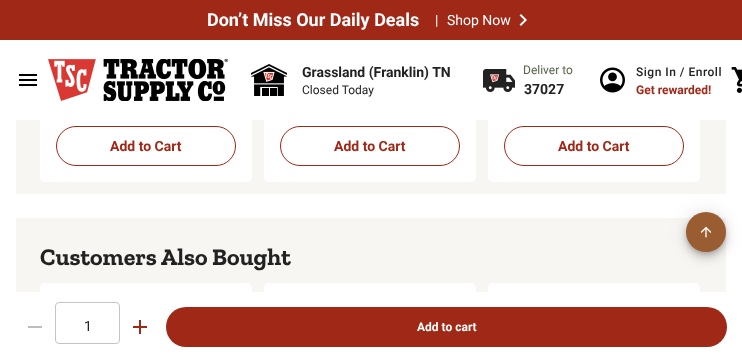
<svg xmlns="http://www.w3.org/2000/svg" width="742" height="362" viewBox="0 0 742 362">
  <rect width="100%" height="100%" fill="rgb(255,255,255)"/>
  <rect x="16" y="120" width="710" height="74" fill="rgb(248,246,242)"/>
  <rect x="40" y="-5" width="212" height="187" rx="5" fill="rgb(255,255,255)"/>
  <rect x="264" y="-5" width="212" height="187" rx="5" fill="rgb(255,255,255)"/>
  <rect x="488" y="-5" width="212" height="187" rx="5" fill="rgb(255,255,255)"/>
  <rect x="0" y="0" width="742" height="40" fill="rgb(160,40,23)"/>
  <text x="207" y="26" font-family="'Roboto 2'" font-size="18" font-weight="bold" fill="rgb(255,255,255)">Don’t Miss Our Daily Deals</text>
  <g font-family="Roboto" font-size="14" fill="rgb(255,255,255)">
    <text x="435" y="25">|</text>
    <text x="447" y="25">Shop Now</text>
  </g>
  <image x="519" y="14" width="8" height="12" href="pic1.png"/>
  <image x="19" y="74" width="18" height="12" href="pic2.png"/>
  <image x="48" y="59" width="180" height="42" href="pic3.png"/>
  <image x="251" y="64" width="36" height="32" href="pic4.png"/>
  <text x="302" y="77" font-family="'Roboto 2'" font-size="14" font-weight="bold" fill="rgb(34,34,34)">Grassland (Franklin) TN</text>
  <text x="302" y="94" font-family="Roboto" font-size="12" fill="rgb(34,34,34)">Closed Today</text>
  <image x="483" y="69" width="32" height="23" href="pic5.png"/>
  <text x="523" y="74" font-family="Roboto" font-size="12" fill="rgb(87,100,70)">Deliver to</text>
  <text x="524" y="94" font-family="'Roboto 2'" font-size="14" font-weight="bold" fill="rgb(34,34,34)">37027</text>
  <image x="600" y="67" width="25" height="26" href="pic6.png"/>
  <text x="636" y="76" font-family="Roboto" font-size="12" font-weight="500" letter-spacing="0.5" fill="rgb(34,34,34)">Sign In / Enroll</text>
  <text x="636" y="94" font-family="'Roboto 2'" font-size="12" font-weight="bold" fill="rgb(160,40,23)">Get rewarded!</text>
  <image x="731" y="67" width="11" height="26" href="pic7.png"/>
  <rect x="56.5" y="126.5" width="179" height="39" rx="19.5" fill="none" stroke="rgb(160,40,23)"/>
  <text x="110" y="151" font-family="Roboto" font-size="14" font-weight="bold" fill="rgb(160,40,23)">Add to Cart</text>
  <rect x="280.5" y="126.5" width="179" height="39" rx="19.5" fill="none" stroke="rgb(160,40,23)"/>
  <text x="334" y="151" font-family="Roboto" font-size="14" font-weight="bold" fill="rgb(160,40,23)">Add to Cart</text>
  <rect x="504.5" y="126.5" width="179" height="39" rx="19.5" fill="none" stroke="rgb(160,40,23)"/>
  <text x="558" y="151" font-family="Roboto" font-size="14" font-weight="bold" fill="rgb(160,40,23)">Add to Cart</text>
  <rect x="16" y="218" width="710" height="74" fill="rgb(248,246,242)"/>
  <text x="40" y="265" font-family="Zilla Slab" font-size="24" font-weight="bold" fill="rgb(34,34,34)">Customers Also Bought</text>
  <rect x="40" y="283" width="212" height="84" rx="5" fill="rgb(255,255,255)"/>
  <rect x="264" y="283" width="212" height="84" rx="5" fill="rgb(255,255,255)"/>
  <rect x="488" y="283" width="212" height="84" rx="5" fill="rgb(255,255,255)"/>
  <rect x="28" y="326" width="14" height="2" fill="rgb(189,189,189)"/>
  <rect x="55.5" y="302.5" width="64" height="41" rx="3.5" fill="none" stroke="rgb(196,196,196)"/>
  <text x="84" y="331" font-family="Roboto" font-size="14" fill="rgb(34,34,34)">1</text>
  <image x="133" y="320" width="14" height="14" href="pic8.png"/>
  <rect x="166" y="307" width="561" height="40" rx="20" fill="rgb(160,40,23)"/>
  <text x="417" y="331" font-family="'Roboto 2'" font-size="12" font-weight="bold" fill="rgb(255,255,255)">Add to cart</text>
  <rect x="686" y="213" width="40" height="40" rx="20" fill="rgba(0,0,0,0.12)" filter="blur(9px)"/>
  <rect x="686" y="218" width="40" height="40" rx="20" fill="rgba(0,0,0,0.14)" filter="blur(5px)"/>
  <rect x="687" y="216" width="38" height="38" rx="19" fill="rgba(0,0,0,0.2)" filter="blur(2.5px)"/>
  <circle cx="706" cy="232" r="20" fill="rgb(154,93,49)"/>
  <image x="700" y="226" width="12" height="12" href="pic9.png"/>
</svg>
